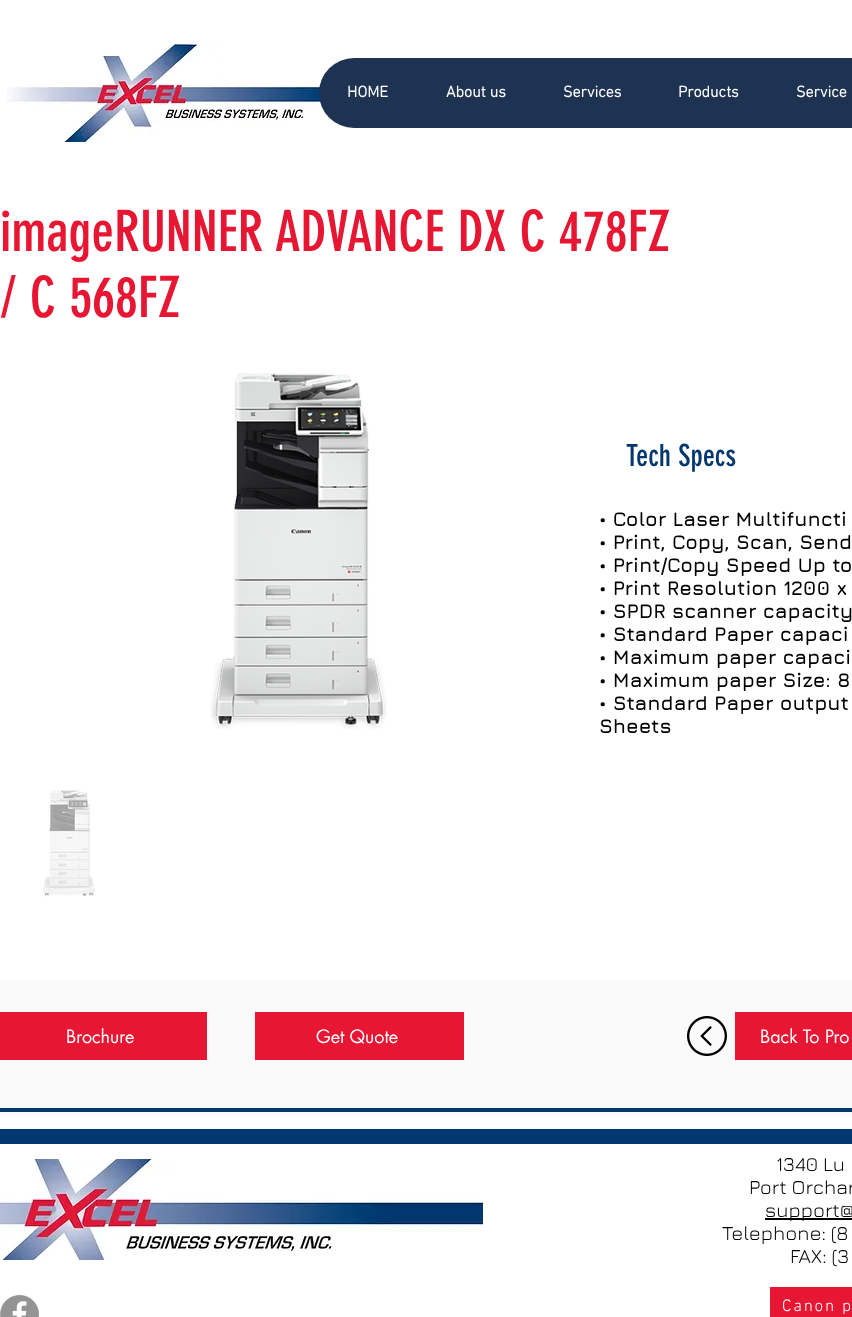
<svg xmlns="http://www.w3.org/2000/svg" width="852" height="1317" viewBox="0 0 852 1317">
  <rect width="100%" height="100%" fill="rgb(255,255,255)"/>
  <image x="7" y="44" width="399" height="98" href="pic1.png"/>
  <rect x="319" y="58" width="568" height="70" rx="35" fill="rgb(30,51,82)"/>
  <g font-family="'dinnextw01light'" font-size="16" font-weight="bold" fill="rgb(255,255,255)">
    <text x="347" y="97">HOME</text>
    <text x="446" y="97">About us</text>
    <text x="563" y="97">Services</text>
    <text x="678" y="97">Products</text>
    <text x="796" y="97">Service</text>
  </g>
  <g font-family="'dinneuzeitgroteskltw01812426'" font-size="56" fill="rgb(231,22,50)">
    <text>
      <tspan x="0" y="251">imageRUNNER ADVANCE DX C 478FZ</tspan>
      <tspan x="0" y="317">/ C 568FZ</tspan>
    </text>
  </g>
  <image x="210" y="373" width="177" height="357" href="pic2.png"/>
  <image x="42" y="790" width="53" height="107" href="pic3.png"/>
  <text x="626" y="466" font-family="'dinneuzeitgroteskltw01812426'" font-size="30" fill="rgb(3,55,112)">Tech Specs</text>
  <g font-family="Jura" font-size="20" font-weight="bold" fill="rgb(0,0,0)">
    <text>
      <tspan x="599" y="526">• Color Laser Multifuncti</tspan>
      <tspan x="599" y="549">• Print, Copy, Scan, Send</tspan>
      <tspan x="599" y="572">• Print/Copy Speed Up to</tspan>
      <tspan x="599" y="595">• Print Resolution 1200 x</tspan>
      <tspan x="599" y="618">• SPDR scanner capacity</tspan>
      <tspan x="599" y="641">• Standard Paper capaci</tspan>
      <tspan x="599" y="664">• Maximum paper capaci</tspan>
      <tspan x="599" y="687">• Maximum paper Size: 8</tspan>
      <tspan x="599" y="710">• Standard Paper output</tspan>
      <tspan x="599" y="733">Sheets</tspan>
    </text>
  </g>
  <rect x="0" y="980" width="852" height="137" fill="rgb(250,250,250)"/>
  <rect x="0" y="1012" width="207" height="48" fill="rgb(231,22,50)"/>
  <text x="66" y="1043" font-family="futura" font-size="18" fill="rgb(255,255,255)">Brochure</text>
  <rect x="255" y="1012" width="209" height="48" fill="rgb(231,22,50)"/>
  <text x="316" y="1043" font-family="futura" font-size="18" fill="rgb(255,255,255)">Get Quote</text>
  <image x="687" y="1016" width="40" height="40" href="pic4.png"/>
  <rect x="735" y="1012" width="117" height="48" fill="rgb(231,22,50)"/>
  <text x="760" y="1043" font-family="futura" font-size="18" fill="rgb(255,255,255)">Back To Pro</text>
  <rect x="0" y="1108" width="852" height="4" fill="rgb(3,55,112)"/>
  <rect x="0" y="1129" width="852" height="15" fill="rgb(3,55,112)"/>
  <image x="0" y="1159" width="483" height="101" href="pic5.png"/>
  <g font-family="Jura" font-size="20" fill="rgb(0,0,0)">
    <text x="776" y="1171">1340 Lu</text>
    <text x="749" y="1194">Port Orchar</text>
  </g>
  <rect x="765" y="1218" width="87" height="2" fill="rgb(0,0,0)"/>
  <g font-family="Jura" font-size="20" fill="rgb(0,0,0)">
    <text x="765" y="1217">support@</text>
    <text x="722" y="1240">Telephone: (8</text>
    <text x="790" y="1263">FAX: (3</text>
  </g>
  <image x="0" y="1295" width="39" height="22" href="pic6.png"/>
  <rect x="770" y="1287" width="82" height="30" fill="rgb(231,22,50)"/>
  <text x="782" y="1311" font-family="'dinnextw01light'" font-size="17" font-weight="300" letter-spacing="1.75" fill="rgb(255,255,255)">Canon p</text>
</svg>
